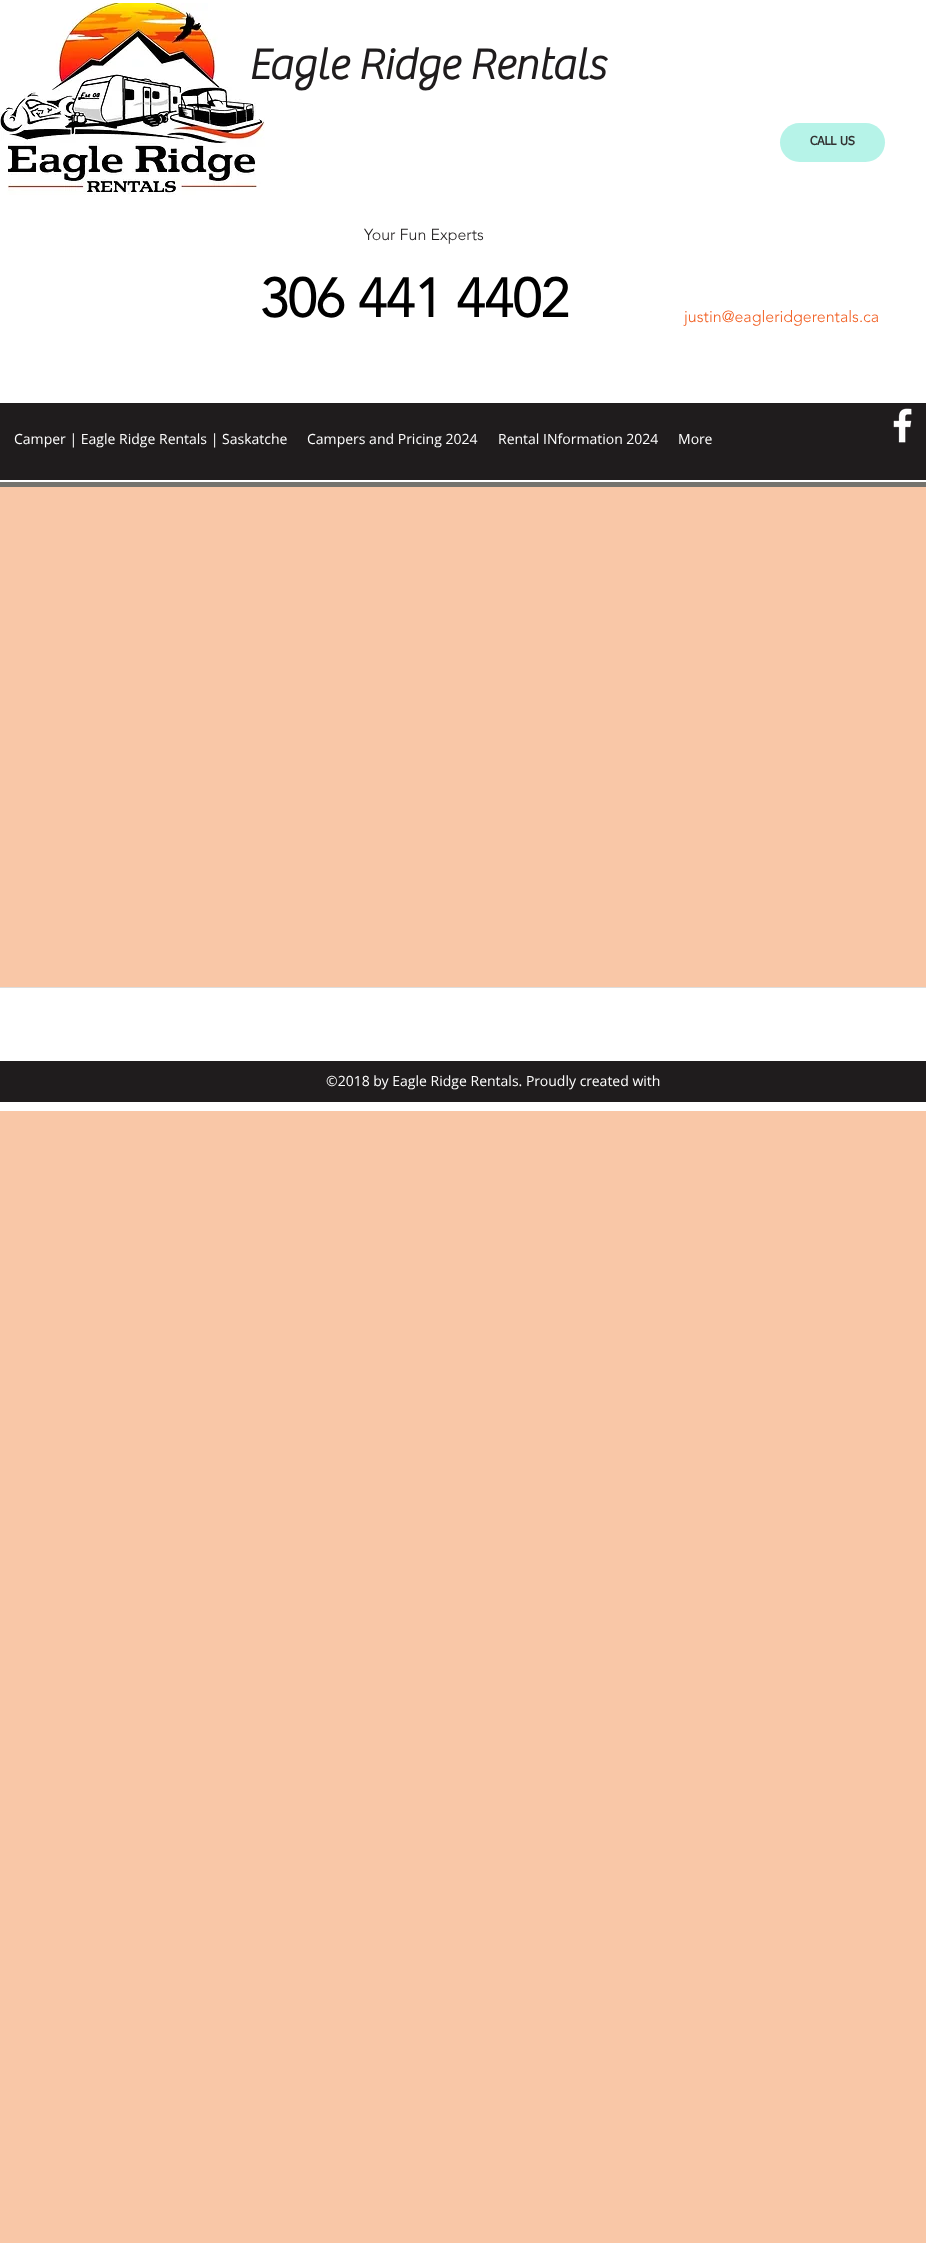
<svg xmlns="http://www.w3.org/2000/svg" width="926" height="2243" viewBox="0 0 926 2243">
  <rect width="100%" height="100%" fill="rgb(249,199,167)"/>
  <rect x="0" y="0" width="926" height="482" fill="rgb(255,255,255)"/>
  <rect x="0" y="482" width="926" height="5" fill="rgb(117,115,109)"/>
  <image x="0" y="3" width="265" height="192" href="pic1.png"/>
  <text x="248" y="79" font-family="'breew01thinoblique'" font-size="44" font-weight="bold" fill="rgb(31,28,29)">Eagle Ridge Rentals</text>
  <rect x="780" y="123" width="105" height="39" rx="19.5" fill="rgb(182,243,232)"/>
  <text x="810" y="145" font-family="tahoma" font-size="12" font-weight="bold" fill="rgb(50,50,50)">CALL US</text>
  <text x="364" y="240" font-family="'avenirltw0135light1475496'" font-size="16" font-weight="300" fill="rgb(31,28,29)">Your Fun Experts</text>
  <text x="260" y="317" font-family="'avenirltw0135light1475496'" font-size="54" font-weight="bold" fill="rgb(0,0,0)">306 441 4402</text>
  <text x="684" y="322" font-family="'avenirltw0135light1475496'" font-size="16" font-weight="300" fill="rgb(241,94,33)">justin@eagleridgerentals.ca</text>
  <rect x="0" y="403" width="926" height="77" fill="rgb(31,28,29)"/>
  <g font-family="Open Sans" font-size="14" fill="rgb(255,255,255)">
    <text x="14" y="444">Camper | Eagle Ridge Rentals | Saskatche</text>
    <text x="307" y="444">Campers and Pricing 2024</text>
    <text x="498" y="444">Rental INformation 2024</text>
    <text x="678" y="444">More</text>
  </g>
  <image x="893" y="408" width="19" height="35" href="pic2.png"/>
  <rect x="0" y="988" width="926" height="123" fill="rgb(255,255,255)"/>
  <rect x="0" y="987" width="926" height="1" fill="rgb(221,221,221)"/>
  <rect x="0" y="1061" width="926" height="41" fill="rgb(31,28,29)"/>
  <text x="326" y="1086" font-family="Open Sans" font-size="14" fill="rgb(255,255,255)">©2018 by Eagle Ridge Rentals. Proudly created with</text>
</svg>
